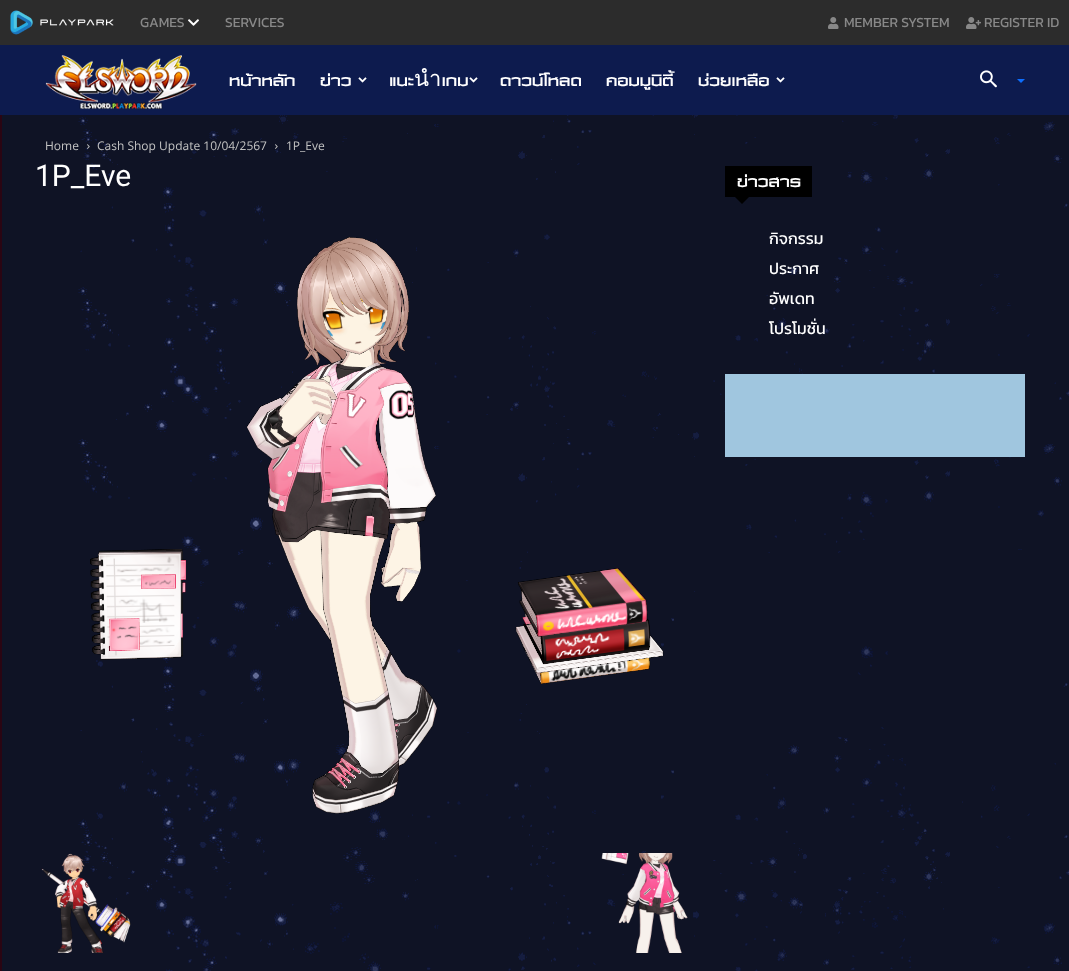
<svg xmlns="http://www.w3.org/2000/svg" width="1069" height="971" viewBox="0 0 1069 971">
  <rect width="100%" height="100%" fill="rgb(255,255,255)"/>
  <rect x="0" y="0" width="1069" height="45" fill="rgb(44,44,44)"/>
  <image x="10" y="10" width="104" height="25" href="pic1.png"/>
  <text x="140" y="27" font-family="Kanit" font-size="14" fill="rgb(136,136,136)">GAMES</text>
  <image x="188" y="19" width="11" height="7" href="pic2.png"/>
  <text x="225" y="27" font-family="Kanit" font-size="14" fill="rgb(136,136,136)">SERVICES</text>
  <image x="828" y="17" width="11" height="12" href="pic3.png"/>
  <text x="844" y="27" font-family="Kanit" font-size="14" fill="rgb(136,136,136)">MEMBER SYSTEM</text>
  <image x="966" y="17" width="15" height="12" href="pic4.png"/>
  <text x="984" y="27" font-family="Kanit" font-size="14" fill="rgb(136,136,136)">REGISTER ID</text>
  <rect x="0" y="45" width="1069" height="70" fill="rgb(13,27,78)"/>
  <image x="45" y="55" width="152" height="54" href="pic5.png"/>
  <g font-family="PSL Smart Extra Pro" font-size="22" fill="rgb(255,255,255)">
    <text x="229" y="86">หน้าหลัก</text>
    <text x="320" y="86">ข่าว</text>
  </g>
  <image x="358" y="77" width="9" height="6" href="pic6.png"/>
  <text x="389" y="86" font-family="PSL Smart Extra Pro" font-size="22" fill="rgb(255,255,255)">แนะนำเกม</text>
  <image x="469" y="77" width="9" height="6" href="pic6.png"/>
  <g font-family="PSL Smart Extra Pro" font-size="22" fill="rgb(255,255,255)">
    <text x="500" y="86">ดาวน์โหลด</text>
    <text x="606" y="86">คอมมูนิตี้</text>
    <text x="698" y="86">ช่วยเหลือ</text>
  </g>
  <image x="776" y="77" width="9" height="6" href="pic6.png"/>
  <image x="980" y="70" width="17" height="18" href="pic7.png"/>
  <path d="M1017 79H1025L1021 83Z" fill="rgb(13,110,253)"/>
  <image x="0" y="115" width="1069" height="856" href="pic8.png"/>
  <text x="45" y="150" font-family="Open Sans" font-size="12" fill="rgb(195,195,195)">Home</text>
  <image x="87" y="144" width="3" height="5" href="pic9.png"/>
  <text x="97" y="150" font-family="Open Sans" font-size="12" fill="rgb(195,195,195)">Cash Shop Update 10/04/2567</text>
  <image x="275" y="144" width="3" height="5" href="pic9.png"/>
  <text x="286" y="150" font-family="Open Sans" font-size="12" fill="rgb(195,195,195)">1P_Eve</text>
  <text x="35" y="186" font-family="Roboto" font-size="30" fill="rgb(255,255,255)">1P_Eve</text>
  <image x="90" y="237" width="574" height="577" href="pic10.png"/>
  <image x="41" y="853" width="90" height="100" href="pic11.png"/>
  <image x="601" y="853" width="87" height="100" href="pic12.png"/>
  <rect x="725" y="166" width="87" height="31" fill="rgb(0,0,0)"/>
  <text x="737" y="187" font-family="PSL Smart Extra Pro" font-size="22" fill="rgb(255,255,255)">ข่าวสาร</text>
  <path d="M735 197H749L742 204Z" fill="rgb(0,0,0)"/>
  <g font-family="Kanit" font-size="16" fill="rgb(255,255,255)">
    <text>
      <tspan x="769" y="244">กิจกรรม</tspan>
      <tspan x="769" y="274">ประกาศ</tspan>
      <tspan x="769" y="304">อัพเดท</tspan>
      <tspan x="769" y="334">โปรโมชั่น</tspan>
    </text>
  </g>
  <rect x="725" y="374" width="300" height="83" fill="rgb(160,198,223)"/>
</svg>
